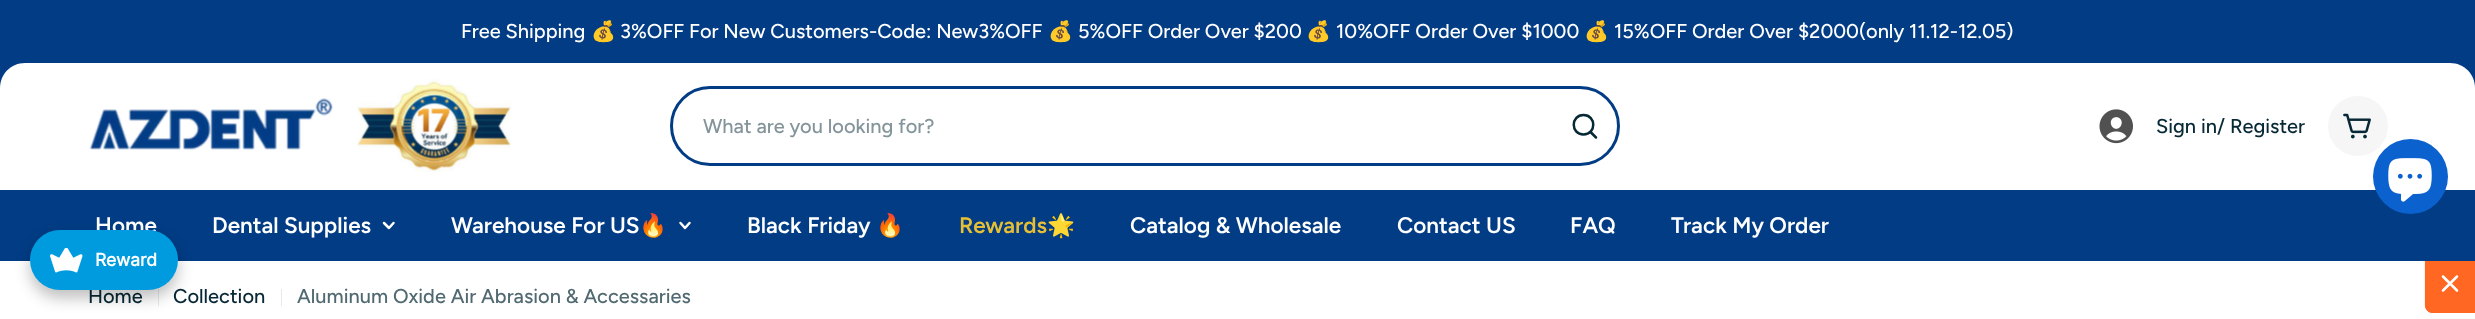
<svg xmlns="http://www.w3.org/2000/svg" width="2475" height="319" viewBox="0 0 2475 319">
  <rect width="100%" height="100%" fill="rgb(255,255,255)"/>
  <path d="M2425 305V15C2425 11 2428 7 2432 7H2475V313H2432C2428 313 2425 309 2425 305Z" fill="rgb(255,103,35)"/>
  <path d="M2425.5 305V15C2425.5 11 2428.5 8 2432.5 8H2474.5V312H2432.5C2428.5 312 2425.5 309 2425.5 305Z" fill="none" stroke="rgb(255,103,35)" stroke-width="1.2"/>
  <rect x="0" y="0" width="2475" height="261" fill="rgb(2,60,132)"/>
  <text x="461" y="38" font-family="Figtree" font-size="20" font-weight="500" fill="rgb(255,255,255)">Free Shipping</text>
  <text x="591" y="38" font-family="Noto Color Emoji" font-size="20" fill="rgb(255,255,255)">💰</text>
  <text x="620" y="38" font-family="Figtree" font-size="20" font-weight="500" fill="rgb(255,255,255)">3%OFF For New Customers-Code: New3%OFF</text>
  <text x="1048" y="38" font-family="Noto Color Emoji" font-size="20" fill="rgb(255,255,255)">💰</text>
  <text x="1078" y="38" font-family="Figtree" font-size="20" font-weight="500" fill="rgb(255,255,255)">5%OFF Order Over $200</text>
  <text x="1306" y="38" font-family="Noto Color Emoji" font-size="20" fill="rgb(255,255,255)">💰</text>
  <text x="1336" y="38" font-family="Figtree" font-size="20" font-weight="500" fill="rgb(255,255,255)">10%OFF Order Over $1000</text>
  <text x="1584" y="38" font-family="Noto Color Emoji" font-size="20" fill="rgb(255,255,255)">💰</text>
  <text x="1614" y="38" font-family="Figtree" font-size="20" font-weight="500" fill="rgb(255,255,255)">15%OFF Order Over $2000(only 11.12-12.05)</text>
  <path d="M25 63H2450C2464 63 2475 74 2475 88V190H0V88C0 74 11 63 25 63Z" fill="rgb(255,255,255)"/>
  <image x="89" y="98" width="244" height="52" href="pic1.png"/>
  <image x="356" y="79" width="155" height="93" href="pic2.png"/>
  <rect x="671.5" y="87.5" width="947" height="77" rx="38.5" fill="none" stroke="rgb(2,60,132)" stroke-width="3"/>
  <text x="703" y="133" font-family="Figtree" font-size="20" font-weight="500" fill="rgb(131,148,154)">What are you looking for?</text>
  <path d="M1583.5 134.5C1596.5 134.5 1596.5 115 1583.5 115C1570.5 115 1570.5 134.5 1583.5 134.5ZM1590.5 132L1596 137.5" fill="none" stroke="rgb(7,40,53)" stroke-width="2.5" stroke-linecap="round" stroke-linejoin="round"/>
  <image x="2099" y="109" width="34" height="35" href="pic3.png"/>
  <text x="2156" y="133" font-family="Figtree" font-size="20" font-weight="500" fill="rgb(7,40,53)">Sign in/ Register</text>
  <circle cx="2358" cy="126" r="30" fill="rgb(246,246,246)"/>
  <image x="2343" y="113" width="28" height="26" href="pic4.png"/>
  <g font-family="Figtree" font-size="22.5" font-weight="600" fill="rgb(255,255,255)">
    <text x="95" y="233">Home</text>
    <text x="212" y="233">Dental Supplies</text>
  </g>
  <path d="M393.5 223L389 228L384 223" fill="none" stroke="rgb(255,255,255)" stroke-width="2.5" stroke-linecap="round" stroke-linejoin="round"/>
  <text x="451" y="233" font-family="Figtree" font-size="22.5" font-weight="600" fill="rgb(255,255,255)">Warehouse For US</text>
  <text x="639" y="233" font-family="Noto Color Emoji" font-size="22.5" font-weight="bold" fill="rgb(255,255,255)">🔥</text>
  <path d="M689.5 223L685 228L680.5 223" fill="none" stroke="rgb(255,255,255)" stroke-width="2.5" stroke-linecap="round" stroke-linejoin="round"/>
  <text x="747" y="233" font-family="Figtree" font-size="22.5" font-weight="600" fill="rgb(255,255,255)">Black Friday</text>
  <text x="876" y="233" font-family="Noto Color Emoji" font-size="22.5" font-weight="bold" fill="rgb(255,255,255)">🔥</text>
  <text x="959" y="233" font-family="Figtree" font-size="22.5" font-weight="600" fill="rgb(231,191,54)">Rewards</text>
  <text x="1047" y="233" font-family="Noto Color Emoji" font-size="22.5" font-weight="bold" fill="rgb(231,191,54)">🌟</text>
  <g font-family="Figtree" font-size="22.5" font-weight="600" fill="rgb(255,255,255)">
    <text x="1130" y="233">Catalog &amp; Wholesale</text>
    <text x="1397" y="233">Contact US</text>
    <text x="1570" y="233">FAQ</text>
    <text x="1671" y="233">Track My Order</text>
  </g>
  <text x="88" y="303" font-family="Figtree" font-size="20" font-weight="500" fill="rgb(7,40,53)">Home</text>
  <rect x="158" y="289" width="1" height="17" fill="rgb(230,234,235)"/>
  <text x="173" y="303" font-family="Figtree" font-size="20" font-weight="500" fill="rgb(7,40,53)">Collection</text>
  <rect x="281" y="289" width="1" height="17" fill="rgb(230,234,235)"/>
  <text x="297" y="303" font-family="Figtree" font-size="20" font-weight="500" fill="rgb(81,105,113)">Aluminum Oxide Air Abrasion &amp; Accessaries</text>
  <circle cx="2410.5" cy="176.5" r="37.5" fill="rgb(11,97,205)"/>
  <image x="2388" y="158" width="44" height="44" href="pic5.png"/>
  <path d="M2457 290.5L2443 276.5M2443 290.5L2457 276.5" fill="none" stroke="rgb(255,255,255)" stroke-width="2.5" stroke-linecap="round" stroke-linejoin="round"/>
  <rect x="30" y="238" width="148" height="60" rx="30" fill="rgba(0,0,0,0.25)" filter="blur(7.5px)"/>
  <rect x="30" y="230" width="148" height="60" rx="30" fill="rgb(0,155,223)"/>
  <image x="50" y="248" width="33" height="25" href="pic6.png"/>
  <text x="95" y="266" font-family="Inter" font-size="17.5" font-weight="bold" fill="rgb(255,255,255)">Reward</text>
</svg>
